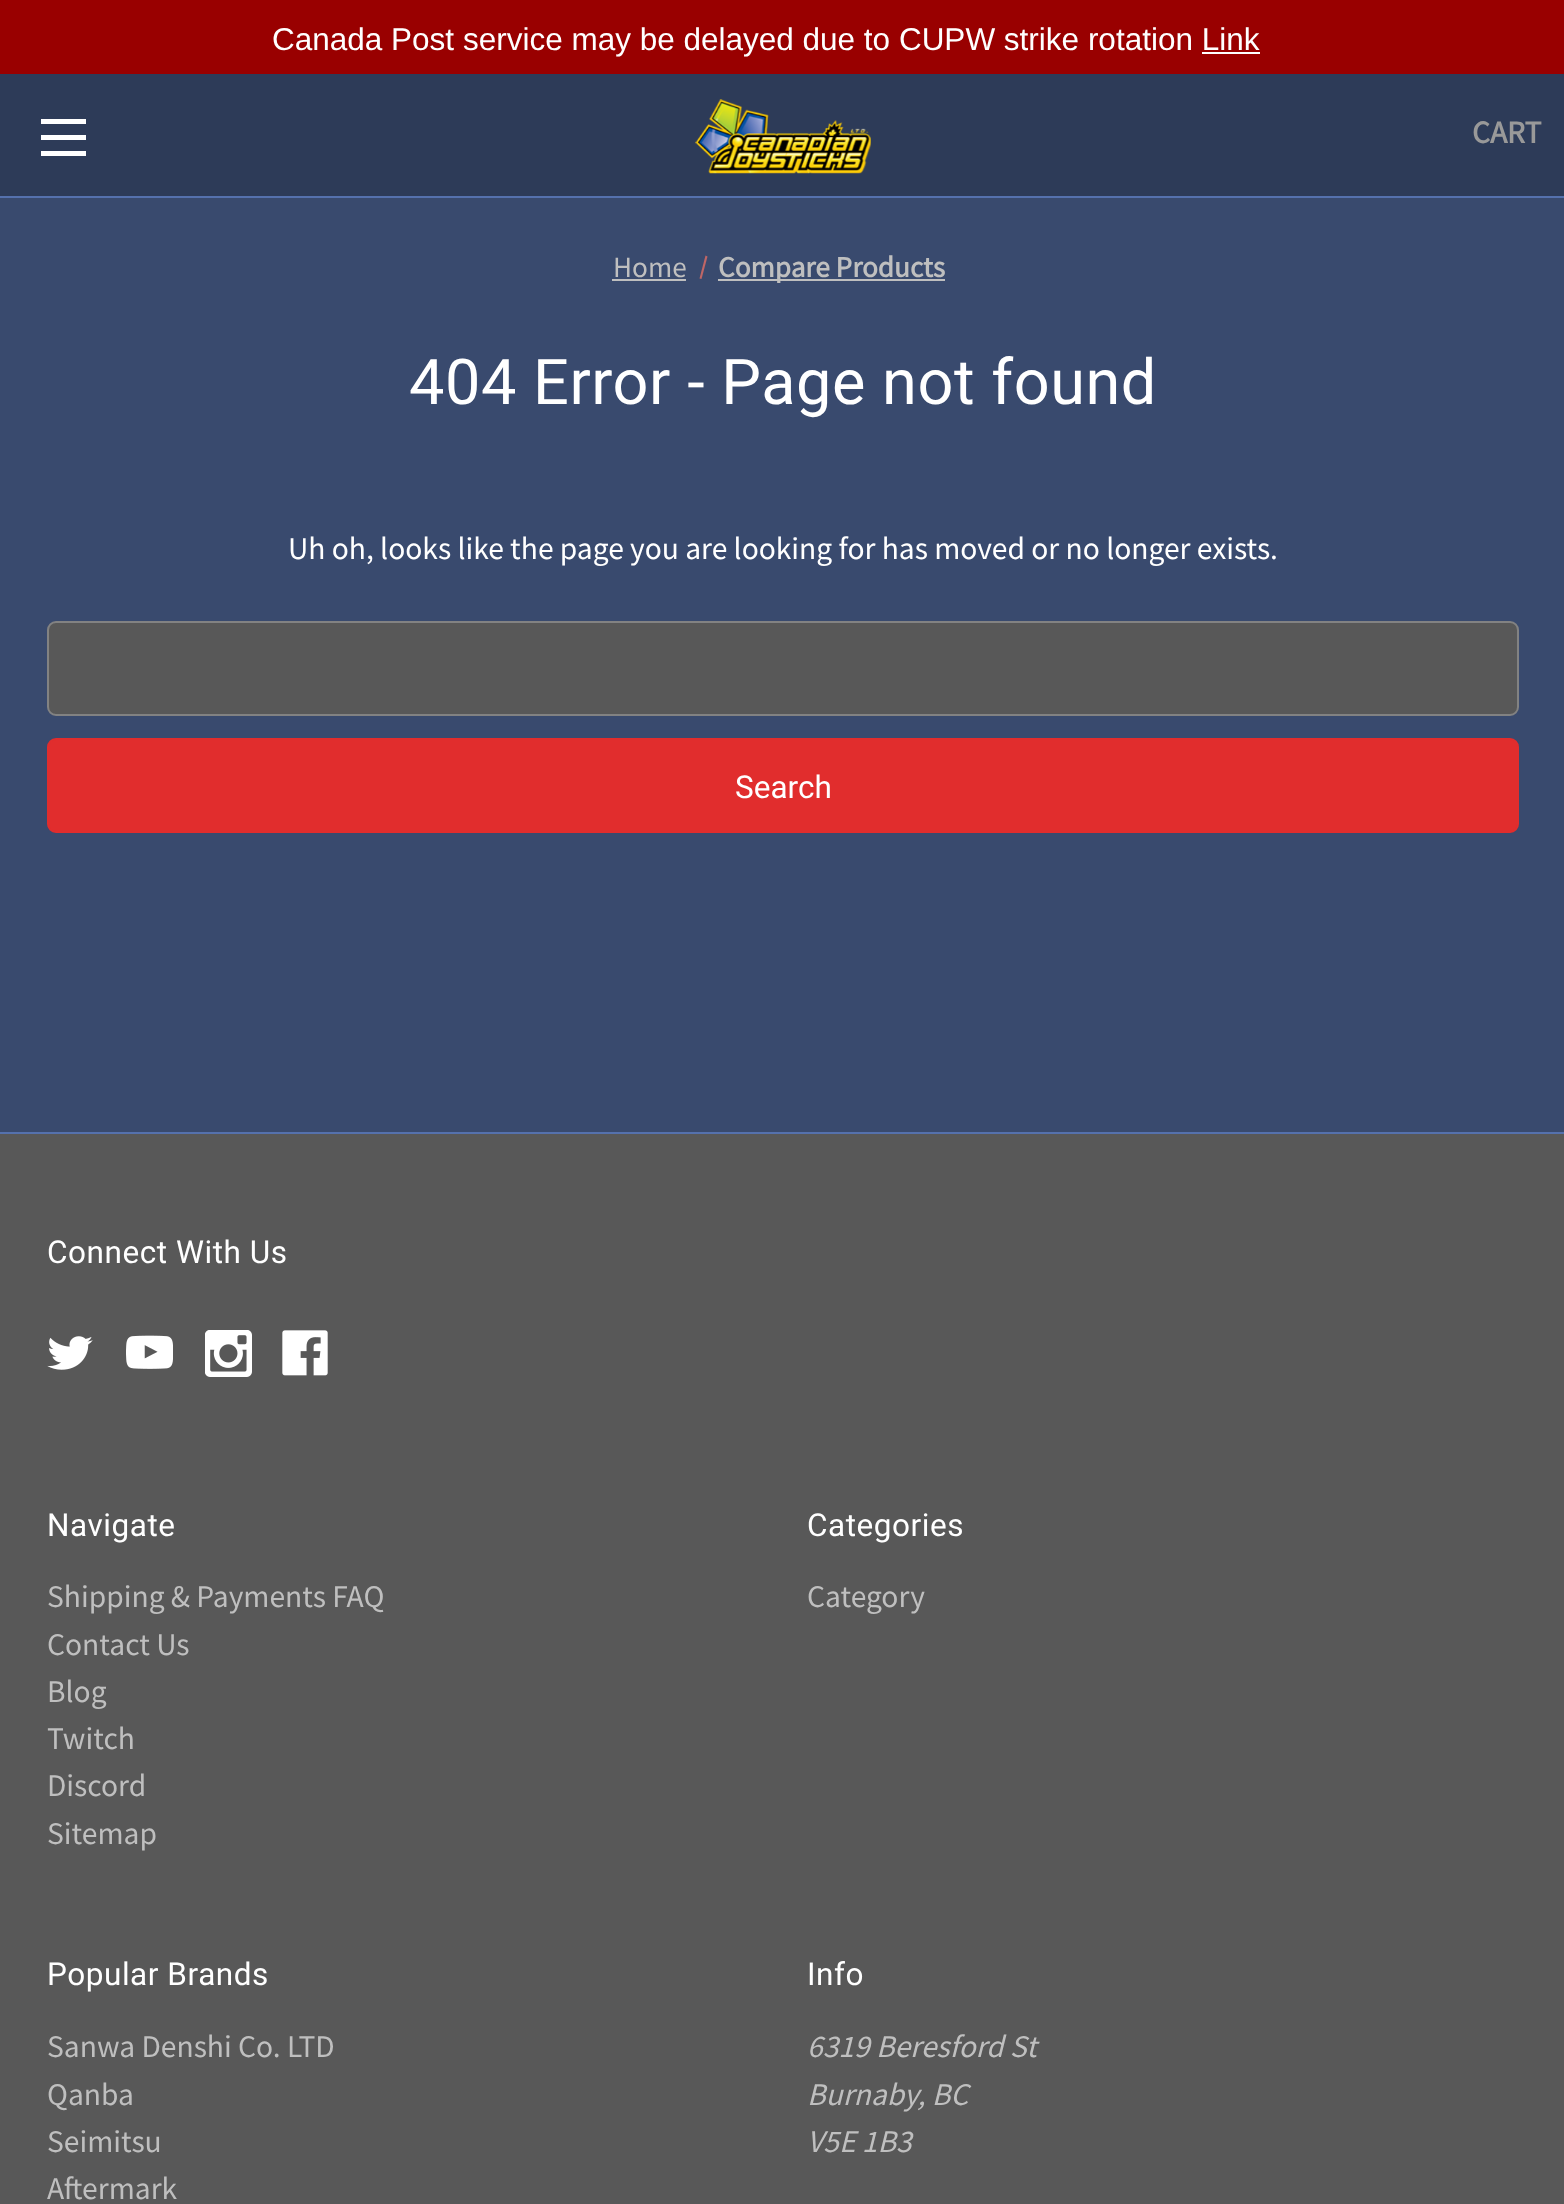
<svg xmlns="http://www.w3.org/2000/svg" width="1564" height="2204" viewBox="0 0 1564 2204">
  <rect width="100%" height="100%" fill="rgb(57,74,110)"/>
  <rect x="0" y="0" width="1564" height="74" fill="rgb(153,0,0)"/>
  <text x="272" y="50" font-family="Liberation Sans" font-size="31.5" fill="rgb(255,255,255)">Canada Post service may be delayed due to CUPW strike rotation Link</text>
  <rect x="1202" y="52" width="58" height="2" fill="rgb(255,255,255)"/>
  <rect x="0" y="74" width="1564" height="122" fill="rgb(45,59,88)"/>
  <rect x="0" y="196" width="1564" height="2" fill="rgb(85,113,173)"/>
  <rect x="41" y="135" width="45" height="5" fill="rgb(255,255,255)"/>
  <rect x="41" y="119" width="45" height="5" fill="rgb(255,255,255)"/>
  <rect x="41" y="151" width="45" height="5" fill="rgb(255,255,255)"/>
  <image x="695" y="99" width="176" height="75" href="pic1.png"/>
  <text x="1472" y="143" font-family="Source Sans Pro" font-size="31.5" font-weight="bold" fill="rgb(153,153,153)">CART</text>
  <text x="613" y="277" font-family="Source Sans Pro" font-size="29.25" fill="rgb(191,191,191)">Home</text>
  <rect x="612" y="279" width="74" height="2" fill="rgb(191,191,191)"/>
  <path d="M705.5 255.5L707.5 256.5L701.5 279L699.5 278.5Z" fill="rgb(191,102,102)"/>
  <rect x="718" y="279" width="227" height="2" fill="rgb(191,191,191)"/>
  <text x="718" y="277" font-family="Source Sans Pro" font-size="29.25" font-weight="bold" fill="rgb(191,191,191)">Compare Products</text>
  <text x="409" y="404" font-family="Roboto" font-size="63" letter-spacing="0.55" fill="rgb(255,255,255)">404 Error - Page not found</text>
  <text x="288" y="559" font-family="Source Sans Pro" font-size="31.5" fill="rgb(255,255,255)">Uh oh, looks like the page you are looking for has moved or no longer exists.</text>
  <rect x="48" y="622" width="1470" height="93" rx="8" fill="rgb(88,88,88)" stroke="rgb(130,130,130)" stroke-width="2"/>
  <rect x="48" y="739" width="1470" height="93" rx="8" fill="rgb(225,45,45)" stroke="rgb(225,45,45)" stroke-width="2"/>
  <text x="735" y="798" font-family="Roboto" font-size="31.5" fill="rgb(255,255,255)">Search</text>
  <rect x="0" y="1134" width="1564" height="1070" fill="rgb(88,88,88)"/>
  <rect x="0" y="1132" width="1564" height="2" fill="rgb(85,113,173)"/>
  <text x="47" y="1263" font-family="Roboto" font-size="31.5" letter-spacing="0.55" fill="rgb(255,255,255)">Connect With Us</text>
  <image x="47" y="1336" width="46" height="34" href="pic2.png"/>
  <image x="126" y="1335" width="47" height="34" href="pic3.png"/>
  <image x="205" y="1330" width="47" height="47" href="pic4.png"/>
  <image x="282" y="1330" width="46" height="46" href="pic5.png"/>
  <text x="47" y="1536" font-family="Roboto" font-size="31.5" letter-spacing="0.55" fill="rgb(255,255,255)">Navigate</text>
  <g font-family="Source Sans Pro" font-size="31.5" fill="rgb(191,191,191)">
    <text>
      <tspan x="47" y="1607">Shipping &amp; Payments FAQ</tspan>
      <tspan x="47" y="1655">Contact Us</tspan>
      <tspan x="47" y="1702">Blog</tspan>
      <tspan x="47" y="1749">Twitch</tspan>
      <tspan x="47" y="1796">Discord</tspan>
      <tspan x="47" y="1844">Sitemap</tspan>
    </text>
  </g>
  <text x="807" y="1536" font-family="Roboto" font-size="31.5" letter-spacing="0.55" fill="rgb(255,255,255)">Categories</text>
  <text x="807" y="1607" font-family="Source Sans Pro" font-size="31.5" fill="rgb(191,191,191)">Category</text>
  <text x="47" y="1985" font-family="Roboto" font-size="31.5" letter-spacing="0.55" fill="rgb(255,255,255)">Popular Brands</text>
  <g font-family="Source Sans Pro" font-size="31.5" fill="rgb(191,191,191)">
    <text>
      <tspan x="47" y="2057">Sanwa Denshi Co. LTD</tspan>
      <tspan x="47" y="2105">Qanba</tspan>
      <tspan x="47" y="2152">Seimitsu</tspan>
      <tspan x="47" y="2199">Aftermark</tspan>
    </text>
  </g>
  <text x="807" y="1985" font-family="Roboto" font-size="31.5" letter-spacing="0.55" fill="rgb(255,255,255)">Info</text>
  <g font-family="Source Sans Pro" font-size="31.5" font-style="italic" fill="rgb(191,191,191)">
    <text>
      <tspan x="807" y="2057">6319 Beresford St</tspan>
      <tspan x="807" y="2105">Burnaby, BC</tspan>
      <tspan x="807" y="2152">V5E 1B3</tspan>
    </text>
  </g>
</svg>
